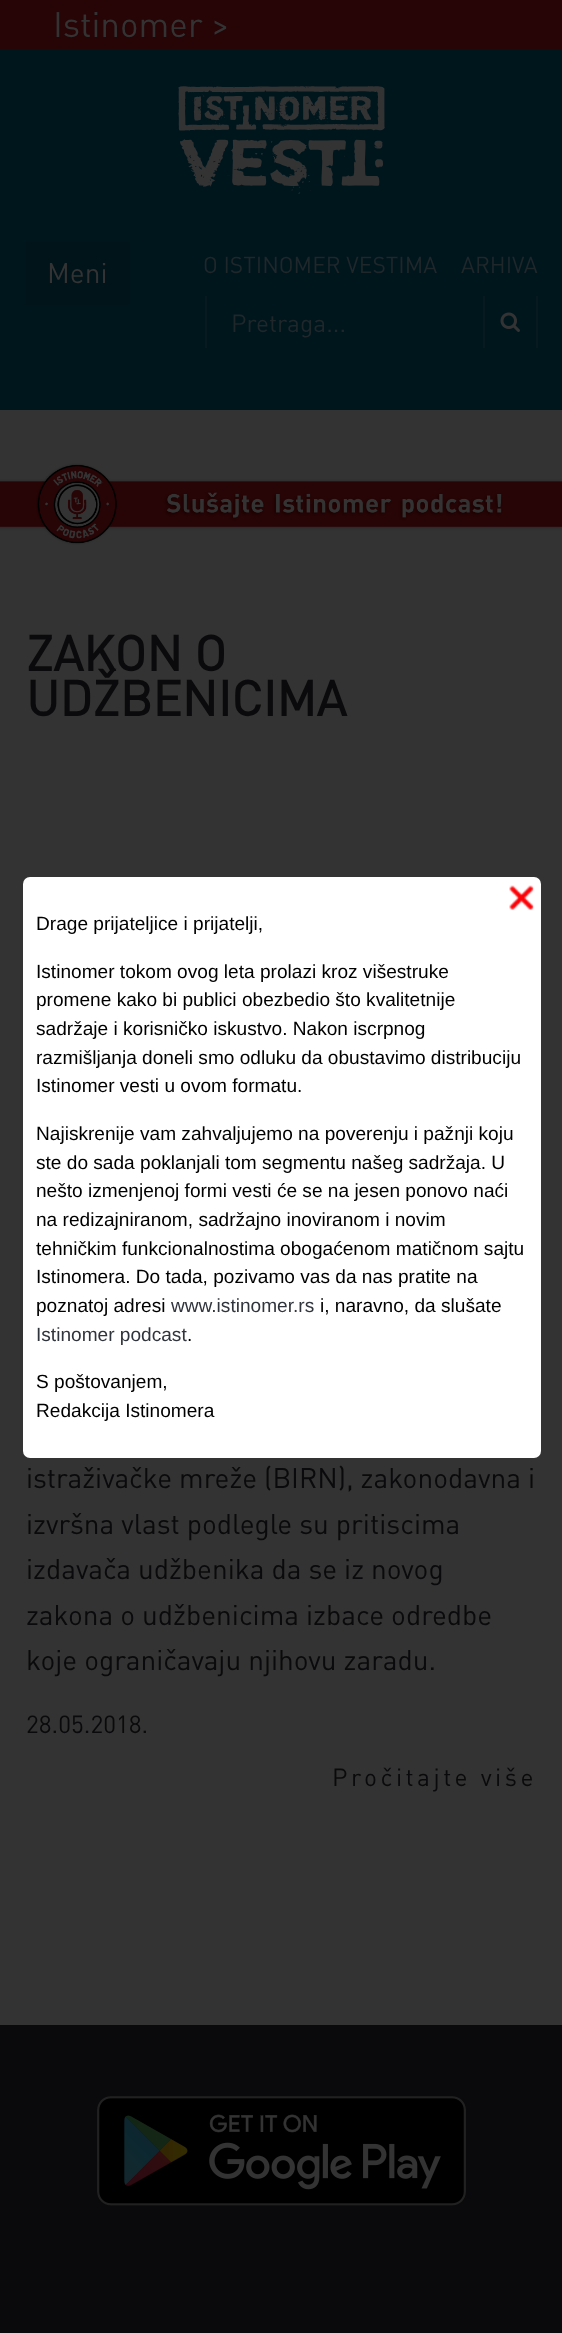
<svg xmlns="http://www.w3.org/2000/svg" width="562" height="2333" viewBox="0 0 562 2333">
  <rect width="100%" height="100%" fill="rgb(51,51,51)"/>
  <rect x="0" y="49" width="562" height="361" fill="rgb(0,22,29)"/>
  <rect x="0" y="0" width="562" height="49" fill="rgb(39,4,6)"/>
  <text x="53" y="37" font-family="DIN" font-size="35" fill="rgb(51,51,51)">Istinomer &gt;</text>
  <image x="178" y="86" width="207" height="108" href="pic1.png"/>
  <rect x="26" y="242" width="104" height="63" fill="rgb(0,20,26)"/>
  <text x="47" y="283" font-family="DIN" font-size="28" fill="rgb(51,51,51)">Meni</text>
  <g font-family="DIN" font-size="22.75" fill="rgb(31,39,42)">
    <text x="203" y="273">O ISTINOMER VESTIMA</text>
    <text x="461" y="273">ARHIVA</text>
  </g>
  <rect x="536" y="296" width="2" height="52" fill="rgb(8,26,32)"/>
  <rect x="205" y="296" width="2" height="52" fill="rgb(8,26,32)"/>
  <text x="231" y="332" font-family="DIN" font-size="24.5" fill="rgb(31,39,42)">Pretraga...</text>
  <rect x="483" y="296" width="2" height="52" fill="rgb(8,26,32)"/>
  <image x="500" y="312" width="20" height="20" href="pic2.png"/>
  <image x="0" y="463" width="562" height="82" href="pic3.png"/>
  <g font-family="DIN" font-size="49" font-weight="bold" fill="rgb(10,10,12)">
    <text>
      <tspan x="26" y="671">ZAKON O</tspan>
      <tspan x="26" y="716">UDŽBENICIMA</tspan>
    </text>
  </g>
  <g font-family="DIN" font-size="28" fill="rgb(10,10,12)">
    <text>
      <tspan x="26" y="1488">istraživačke mreže (BIRN), zakonodavna i</tspan>
      <tspan x="26" y="1534">izvršna vlast podlegle su pritiscima</tspan>
      <tspan x="26" y="1579">izdavača udžbenika da se iz novog</tspan>
      <tspan x="26" y="1625">zakona o udžbenicima izbace odredbe</tspan>
      <tspan x="26" y="1670">koje ograničavaju njihovu zaradu.</tspan>
    </text>
  </g>
  <text x="26" y="1733" font-family="DIN" font-size="24.5" fill="rgb(10,10,12)">28.05.2018.</text>
  <text x="332" y="1786" font-family="DIN" font-size="24.5" letter-spacing="3.5" fill="rgb(10,10,12)">Pročitajte više</text>
  <rect x="23" y="877" width="518" height="581" rx="7" fill="rgb(255,255,255)"/>
  <image x="509" y="885" width="25" height="25" href="pic4.png"/>
  <g font-family="Liberation Sans" font-size="19.1" fill="rgb(0,0,0)">
    <text x="36" y="930">Drage prijateljice i prijatelji,</text>
    <text>
      <tspan x="36" y="978">Istinomer tokom ovog leta prolazi kroz višestruke</tspan>
      <tspan x="36" y="1006">promene kako bi publici obezbedio što kvalitetnije</tspan>
      <tspan x="36" y="1035">sadržaje i korisničko iskustvo. Nakon iscrpnog</tspan>
      <tspan x="36" y="1064">razmišljanja doneli smo odluku da obustavimo distribuciju</tspan>
      <tspan x="36" y="1092">Istinomer vesti u ovom formatu.</tspan>
    </text>
    <text>
      <tspan x="36" y="1140">Najiskrenije vam zahvaljujemo na poverenju i pažnji koju</tspan>
      <tspan x="36" y="1169">ste do sada poklanjali tom segmentu našeg sadržaja. U</tspan>
      <tspan x="36" y="1197">nešto izmenjenoj formi vesti će se na jesen ponovo naći</tspan>
      <tspan x="36" y="1226">na redizajniranom, sadržajno inoviranom i novim</tspan>
      <tspan x="36" y="1255">tehničkim funkcionalnostima obogaćenom matičnom sajtu</tspan>
      <tspan x="36" y="1283">Istinomera. Do tada, pozivamo vas da nas pratite na</tspan>
      <tspan x="36" y="1312">poznatoj adresi</tspan>
    </text>
  </g>
  <text x="171" y="1312" font-family="Liberation Sans" font-size="19.1" fill="rgb(48,52,61)">www.istinomer.rs</text>
  <text x="320" y="1312" font-family="Liberation Sans" font-size="19.1" fill="rgb(0,0,0)">i, naravno, da slušate</text>
  <text x="36" y="1341" font-family="Liberation Sans" font-size="19.1" fill="rgb(48,52,61)">Istinomer podcast</text>
  <g font-family="Liberation Sans" font-size="19.1" fill="rgb(0,0,0)">
    <text x="187" y="1341">.</text>
    <text>
      <tspan x="36" y="1388">S poštovanjem,</tspan>
      <tspan x="36" y="1417">Redakcija Istinomera</tspan>
    </text>
  </g>
  <rect x="0" y="2025" width="562" height="308" fill="rgb(10,10,12)"/>
  <image x="97" y="2096" width="369" height="110" href="pic5.png"/>
</svg>
